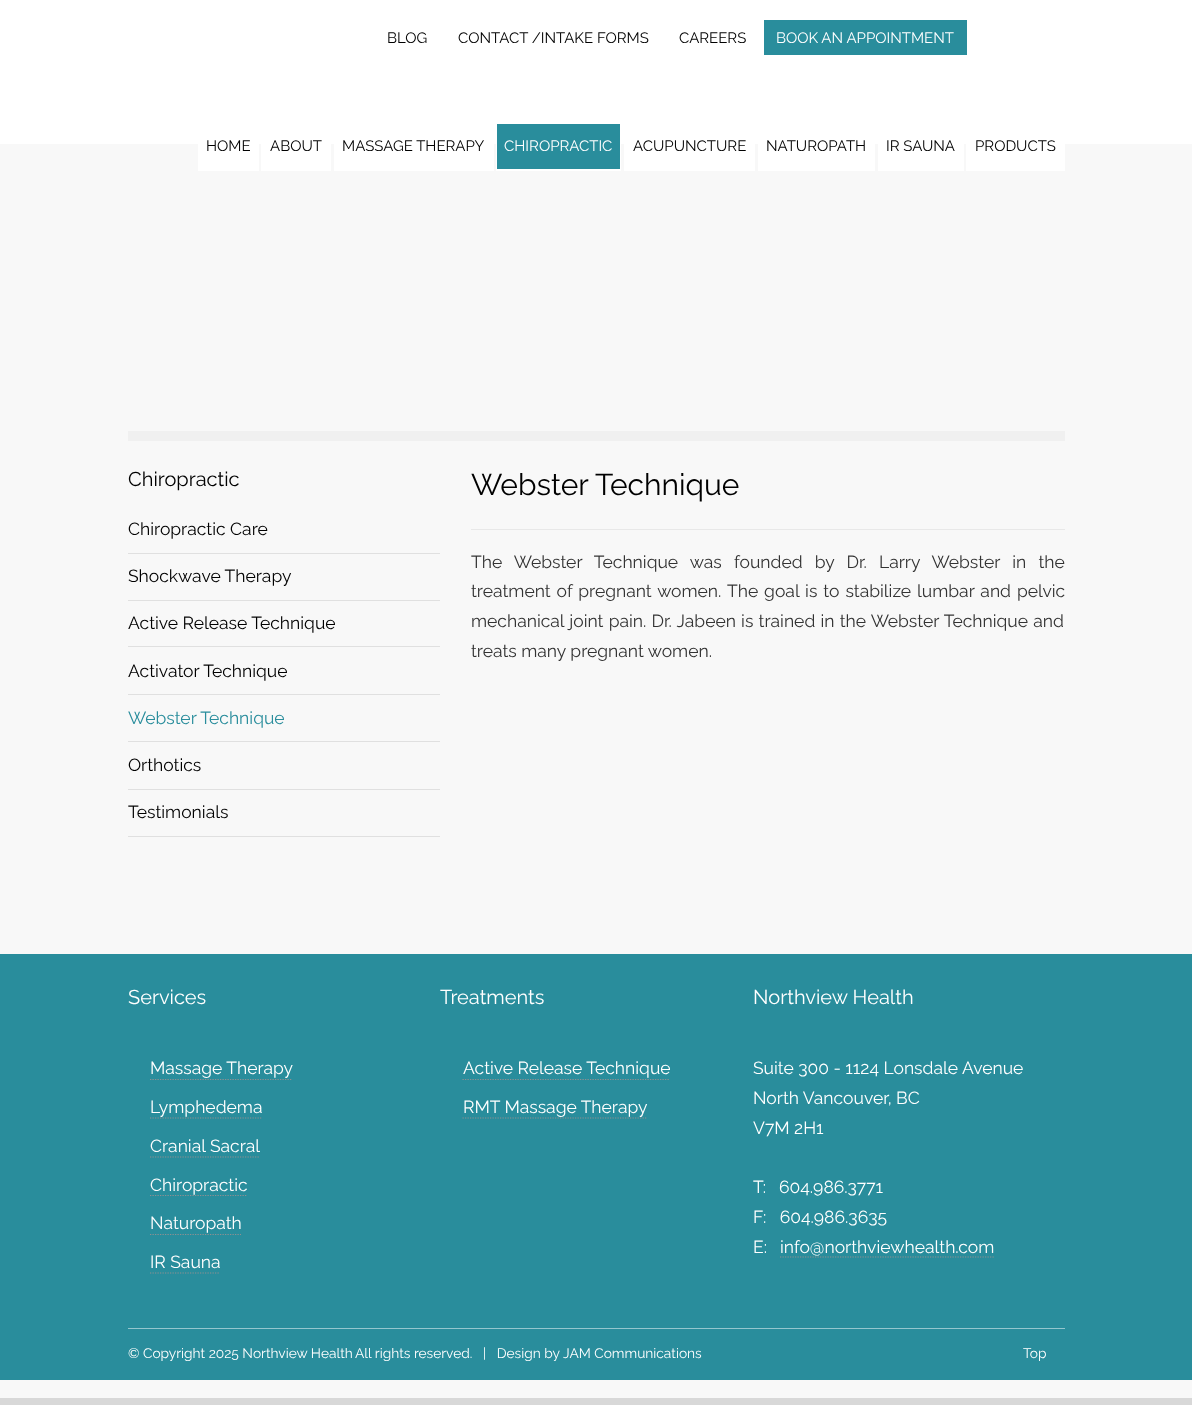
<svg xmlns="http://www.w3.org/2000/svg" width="1192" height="1405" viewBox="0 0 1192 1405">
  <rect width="100%" height="100%" fill="rgb(216,216,216)"/>
  <rect x="0" y="144" width="1192" height="1254" fill="rgb(248,248,248)"/>
  <rect x="0" y="0" width="1192" height="144" fill="rgb(255,255,255)"/>
  <g font-family="Raleway" font-size="15" fill="rgb(0,0,0)">
    <text x="387" y="43">BLOG</text>
    <text x="458" y="43">CONTACT /INTAKE FORMS</text>
    <text x="679" y="43">CAREERS</text>
  </g>
  <rect x="764" y="20" width="203" height="35" fill="rgb(41,141,156)"/>
  <text x="776" y="43" font-family="Raleway" font-size="15" fill="rgb(255,255,255)">BOOK AN APPOINTMENT</text>
  <rect x="198" y="144" width="61" height="27" fill="rgb(255,255,255)"/>
  <text x="206" y="151" font-family="Raleway" font-size="15" fill="rgb(0,0,0)">HOME</text>
  <rect x="261" y="144" width="70" height="27" fill="rgb(255,255,255)"/>
  <text x="270" y="151" font-family="Raleway" font-size="15" fill="rgb(0,0,0)">ABOUT</text>
  <rect x="334" y="144" width="160" height="27" fill="rgb(255,255,255)"/>
  <text x="342" y="151" font-family="Raleway" font-size="15" fill="rgb(0,0,0)">MASSAGE THERAPY</text>
  <rect x="496" y="170" width="125" height="1" fill="rgb(255,255,255)"/>
  <rect x="496.5" y="123.5" width="124" height="46" fill="rgb(41,141,156)" stroke="rgb(255,255,255)"/>
  <text x="504" y="151" font-family="Raleway" font-size="15" fill="rgb(255,255,255)">CHIROPRACTIC</text>
  <rect x="624" y="144" width="131" height="27" fill="rgb(255,255,255)"/>
  <text x="633" y="151" font-family="Raleway" font-size="15" fill="rgb(0,0,0)">ACUPUNCTURE</text>
  <rect x="758" y="144" width="117" height="27" fill="rgb(255,255,255)"/>
  <text x="766" y="151" font-family="Raleway" font-size="15" fill="rgb(0,0,0)">NATUROPATH</text>
  <rect x="878" y="144" width="86" height="27" fill="rgb(255,255,255)"/>
  <text x="886" y="151" font-family="Raleway" font-size="15" fill="rgb(0,0,0)">IR SAUNA</text>
  <rect x="966" y="144" width="99" height="27" fill="rgb(255,255,255)"/>
  <text x="975" y="151" font-family="Raleway" font-size="15" fill="rgb(0,0,0)">PRODUCTS</text>
  <rect x="128" y="431" width="937" height="10" fill="rgb(240,240,240)"/>
  <text x="128" y="486" font-family="Raleway" font-size="20" fill="rgb(0,0,0)">Chiropractic</text>
  <rect x="128" y="553" width="312" height="1" fill="rgb(224,224,224)"/>
  <text x="128" y="535" font-family="Raleway" font-size="17.5" fill="rgb(0,0,0)">Chiropractic Care</text>
  <rect x="128" y="600" width="312" height="1" fill="rgb(224,224,224)"/>
  <text x="128" y="582" font-family="Raleway" font-size="17.5" fill="rgb(0,0,0)">Shockwave Therapy</text>
  <rect x="128" y="646" width="312" height="1" fill="rgb(224,224,224)"/>
  <text x="128" y="629" font-family="Raleway" font-size="17.5" fill="rgb(0,0,0)">Active Release Technique</text>
  <rect x="128" y="694" width="312" height="1" fill="rgb(224,224,224)"/>
  <text x="128" y="677" font-family="Raleway" font-size="17.5" fill="rgb(0,0,0)">Activator Technique</text>
  <rect x="128" y="741" width="312" height="1" fill="rgb(224,224,224)"/>
  <text x="128" y="724" font-family="Raleway" font-size="17.5" fill="rgb(41,141,156)">Webster Technique</text>
  <rect x="128" y="789" width="312" height="1" fill="rgb(224,224,224)"/>
  <text x="128" y="771" font-family="Raleway" font-size="17.5" fill="rgb(0,0,0)">Orthotics</text>
  <rect x="128" y="836" width="312" height="1" fill="rgb(224,224,224)"/>
  <text x="128" y="818" font-family="Raleway" font-size="17.5" fill="rgb(0,0,0)">Testimonials</text>
  <rect x="471" y="529" width="594" height="1" fill="rgb(232,232,232)"/>
  <text x="471" y="495" font-family="Raleway" font-size="30" fill="rgb(0,0,0)">Webster Technique</text>
  <g font-family="Raleway" font-size="17.5" fill="rgb(51,51,51)">
    <text>
      <tspan x="471" y="568" word-spacing="7.75">The Webster Technique was founded by Dr. Larry Webster in the</tspan>
      <tspan x="471" y="597" word-spacing="1.5">treatment of pregnant women.</tspan>
    </text>
    <text x="727" y="597" word-spacing="1.5">The goal is to stabilize lumbar and pelvic</text>
    <text>
      <tspan x="471" y="627" word-spacing="0.75">mechanical joint pain. Dr. Jabeen is trained in the Webster Technique and</tspan>
      <tspan x="471" y="657">treats many pregnant women.</tspan>
    </text>
  </g>
  <rect x="0" y="954" width="1192" height="426" fill="rgb(41,141,156)"/>
  <text x="128" y="1004" font-family="Raleway" font-size="20" fill="rgb(255,255,255)">Services</text>
  <text x="150" y="1074" font-family="Raleway" font-size="17.5" fill="rgb(255,255,255)">Massage Therapy</text>
  <path d="M150 1079.5H292.5" fill="none" stroke="rgb(144,144,144)" stroke-width="1.2" stroke-dasharray="1.25 1.25"/>
  <text x="150" y="1113" font-family="Raleway" font-size="17.5" fill="rgb(255,255,255)">Lymphedema</text>
  <path d="M150 1118H262.5" fill="none" stroke="rgb(144,144,144)" stroke-width="1.2" stroke-dasharray="1.25 1.25"/>
  <text x="150" y="1152" font-family="Raleway" font-size="17.5" fill="rgb(255,255,255)">Cranial Sacral</text>
  <path d="M150 1157H260" fill="none" stroke="rgb(144,144,144)" stroke-width="1.2" stroke-dasharray="1.25 1.25"/>
  <path d="M150 1195.5H247.5" fill="none" stroke="rgb(144,144,144)" stroke-width="1.2" stroke-dasharray="1.25 1.25"/>
  <g font-family="Raleway" font-size="17.5" fill="rgb(255,255,255)">
    <text x="150" y="1191">Chiropractic</text>
    <text x="150" y="1229">Naturopath</text>
  </g>
  <path d="M150 1234.5H241" fill="none" stroke="rgb(144,144,144)" stroke-width="1.2" stroke-dasharray="1.25 1.25"/>
  <text x="150" y="1268" font-family="Raleway" font-size="17.5" fill="rgb(255,255,255)">IR Sauna</text>
  <path d="M150 1273H220" fill="none" stroke="rgb(144,144,144)" stroke-width="1.2" stroke-dasharray="1.25 1.25"/>
  <text x="440" y="1004" font-family="Raleway" font-size="20" fill="rgb(255,255,255)">Treatments</text>
  <text x="463" y="1074" font-family="Raleway" font-size="17.5" fill="rgb(255,255,255)">Active Release Technique</text>
  <path d="M462.5 1079.5H670" fill="none" stroke="rgb(144,144,144)" stroke-width="1.2" stroke-dasharray="1.25 1.25"/>
  <text x="463" y="1113" font-family="Raleway" font-size="17.5" fill="rgb(255,255,255)">RMT Massage Therapy</text>
  <path d="M462.5 1118H647.5" fill="none" stroke="rgb(144,144,144)" stroke-width="1.2" stroke-dasharray="1.25 1.25"/>
  <text x="753" y="1004" font-family="Raleway" font-size="20" fill="rgb(255,255,255)">Northview Health</text>
  <g font-family="Raleway" font-size="17.5" fill="rgb(255,255,255)">
    <text>
      <tspan x="753" y="1074">Suite 300 - 1124 Lonsdale Avenue</tspan>
      <tspan x="753" y="1104">North Vancouver, BC</tspan>
      <tspan x="753" y="1134">V7M 2H1</tspan>
    </text>
    <text x="753" y="1193">T:</text>
    <text x="779" y="1193">604.986.3771</text>
    <text xml:space="preserve"><tspan x="753" y="1223">F:   604.986.3635</tspan><tspan x="753" y="1253">E:</tspan></text>
    <text x="780" y="1253">info@northviewhealth.com</text>
  </g>
  <path d="M780 1257H994" fill="none" stroke="rgb(144,144,144)" stroke-width="1.2" stroke-dasharray="1.25 1.25"/>
  <rect x="128" y="1328" width="937" height="1" fill="rgb(148,198,206)"/>
  <g font-family="Raleway" font-size="13.75" fill="rgb(255,255,255)">
    <text x="128" y="1358">© Copyright 2025 Northview Health</text>
    <text x="355" y="1358" xml:space="preserve">All rights reserved.   |   Design by</text>
    <text x="563" y="1358">JAM Communications</text>
    <text x="1023" y="1358">Top</text>
  </g>
</svg>
